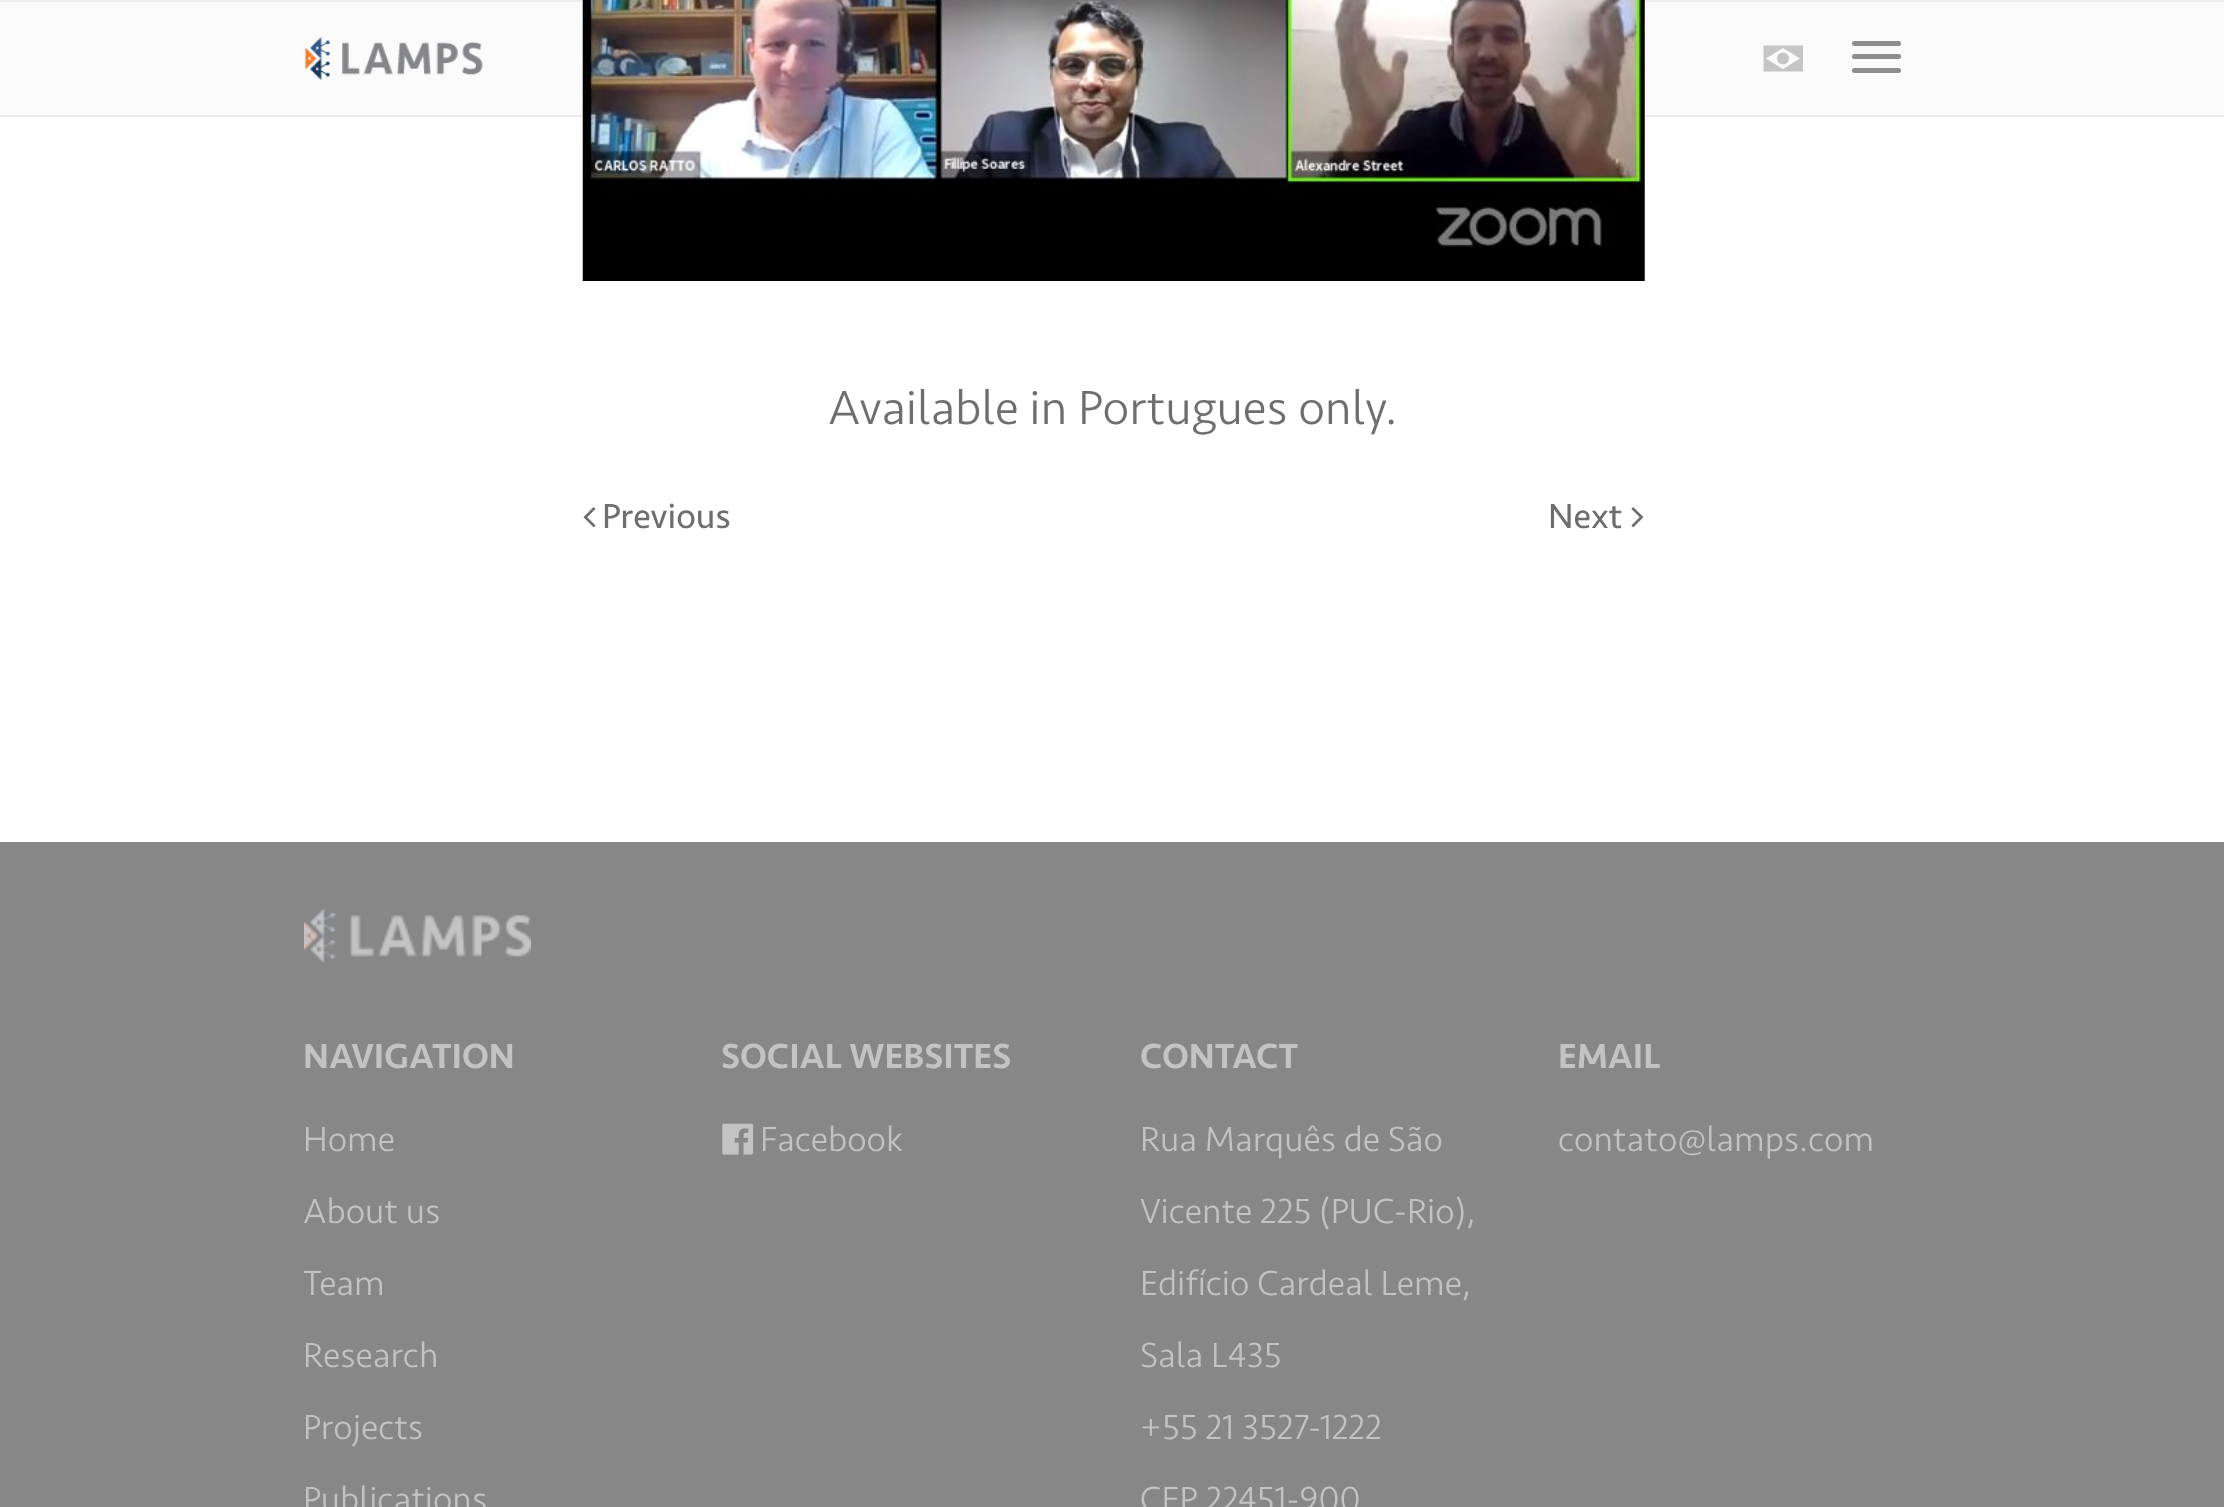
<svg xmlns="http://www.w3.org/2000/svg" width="2224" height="1507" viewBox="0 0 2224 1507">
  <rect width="100%" height="100%" fill="rgb(255,255,255)"/>
  <rect x="0" y="2" width="2224" height="113" fill="rgb(250,250,250)"/>
  <rect x="0" y="0" width="2224" height="2" fill="rgb(236,236,236)"/>
  <rect x="0" y="115" width="2224" height="2" fill="rgb(236,236,236)"/>
  <image x="304" y="37" width="179" height="43" href="pic1.png"/>
  <circle cx="1783" cy="58.5" r="6" fill="rgb(197,197,197)"/>
  <path d="M1763.5 45.5V71.5H1803V45.5ZM1783 69L1766 58.5L1783 48L1800 58.5Z" fill="rgb(197,197,197)"/>
  <rect x="1852" y="41" width="49" height="5" rx="2.5" fill="rgb(141,141,141)"/>
  <rect x="1852" y="54" width="49" height="5" rx="2.5" fill="rgb(141,141,141)"/>
  <rect x="1852" y="68" width="49" height="5" rx="2.5" fill="rgb(141,141,141)"/>
  <image x="582" y="0" width="1063" height="281" href="pic2.png"/>
  <text x="828" y="424" font-family="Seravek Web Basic" font-size="49.5" font-weight="300" fill="rgb(110,110,110)">Available in Portugues only.</text>
  <image x="583" y="507" width="13" height="21" href="pic3.png"/>
  <g font-family="Seravek Web Basic" font-size="36" fill="rgb(110,110,110)">
    <text x="602" y="528">Previous</text>
    <text x="1548" y="528">Next</text>
  </g>
  <image x="1631" y="507" width="13" height="21" href="pic4.png"/>
  <rect x="0" y="842" width="2224" height="665" fill="rgb(135,135,135)"/>
  <image x="304" y="909" width="227" height="54" href="pic5.png"/>
  <text x="303" y="1068" font-family="Seravek Web Basic" font-size="36" font-weight="500" fill="rgb(195,195,195)">NAVIGATION</text>
  <g font-family="Seravek Web Basic" font-size="36" font-weight="300" fill="rgb(195,195,195)">
    <text x="303" y="1151">Home</text>
    <text x="303" y="1223">About us</text>
    <text x="303" y="1295">Team</text>
    <text x="303" y="1367">Research</text>
    <text x="303" y="1439">Projects</text>
    <text x="303" y="1511">Publications</text>
  </g>
  <text x="721" y="1068" font-family="Seravek Web Basic" font-size="36" font-weight="500" fill="rgb(195,195,195)">SOCIAL WEBSITES</text>
  <image x="722" y="1123" width="32" height="32" href="pic6.png"/>
  <text x="760" y="1151" font-family="Seravek Web Basic" font-size="36" font-weight="300" fill="rgb(195,195,195)">Facebook</text>
  <text x="1140" y="1068" font-family="Seravek Web Basic" font-size="36" font-weight="500" fill="rgb(195,195,195)">CONTACT</text>
  <g font-family="Seravek Web Basic" font-size="36" font-weight="300" fill="rgb(195,195,195)">
    <text x="1140" y="1151">Rua Marquês de São</text>
    <text x="1140" y="1223">Vicente 225 (PUC-Rio),</text>
    <text x="1140" y="1295">Edifício Cardeal Leme,</text>
    <text x="1140" y="1367">Sala L435</text>
    <text x="1140" y="1439">+55 21 3527-1222</text>
    <text x="1140" y="1511">CEP 22451-900</text>
  </g>
  <text x="1558" y="1068" font-family="Seravek Web Basic" font-size="36" font-weight="500" fill="rgb(195,195,195)">EMAIL</text>
  <text x="1558" y="1151" font-family="Seravek Web Basic" font-size="36" font-weight="300" fill="rgb(195,195,195)">contato@lamps.com</text>
</svg>
